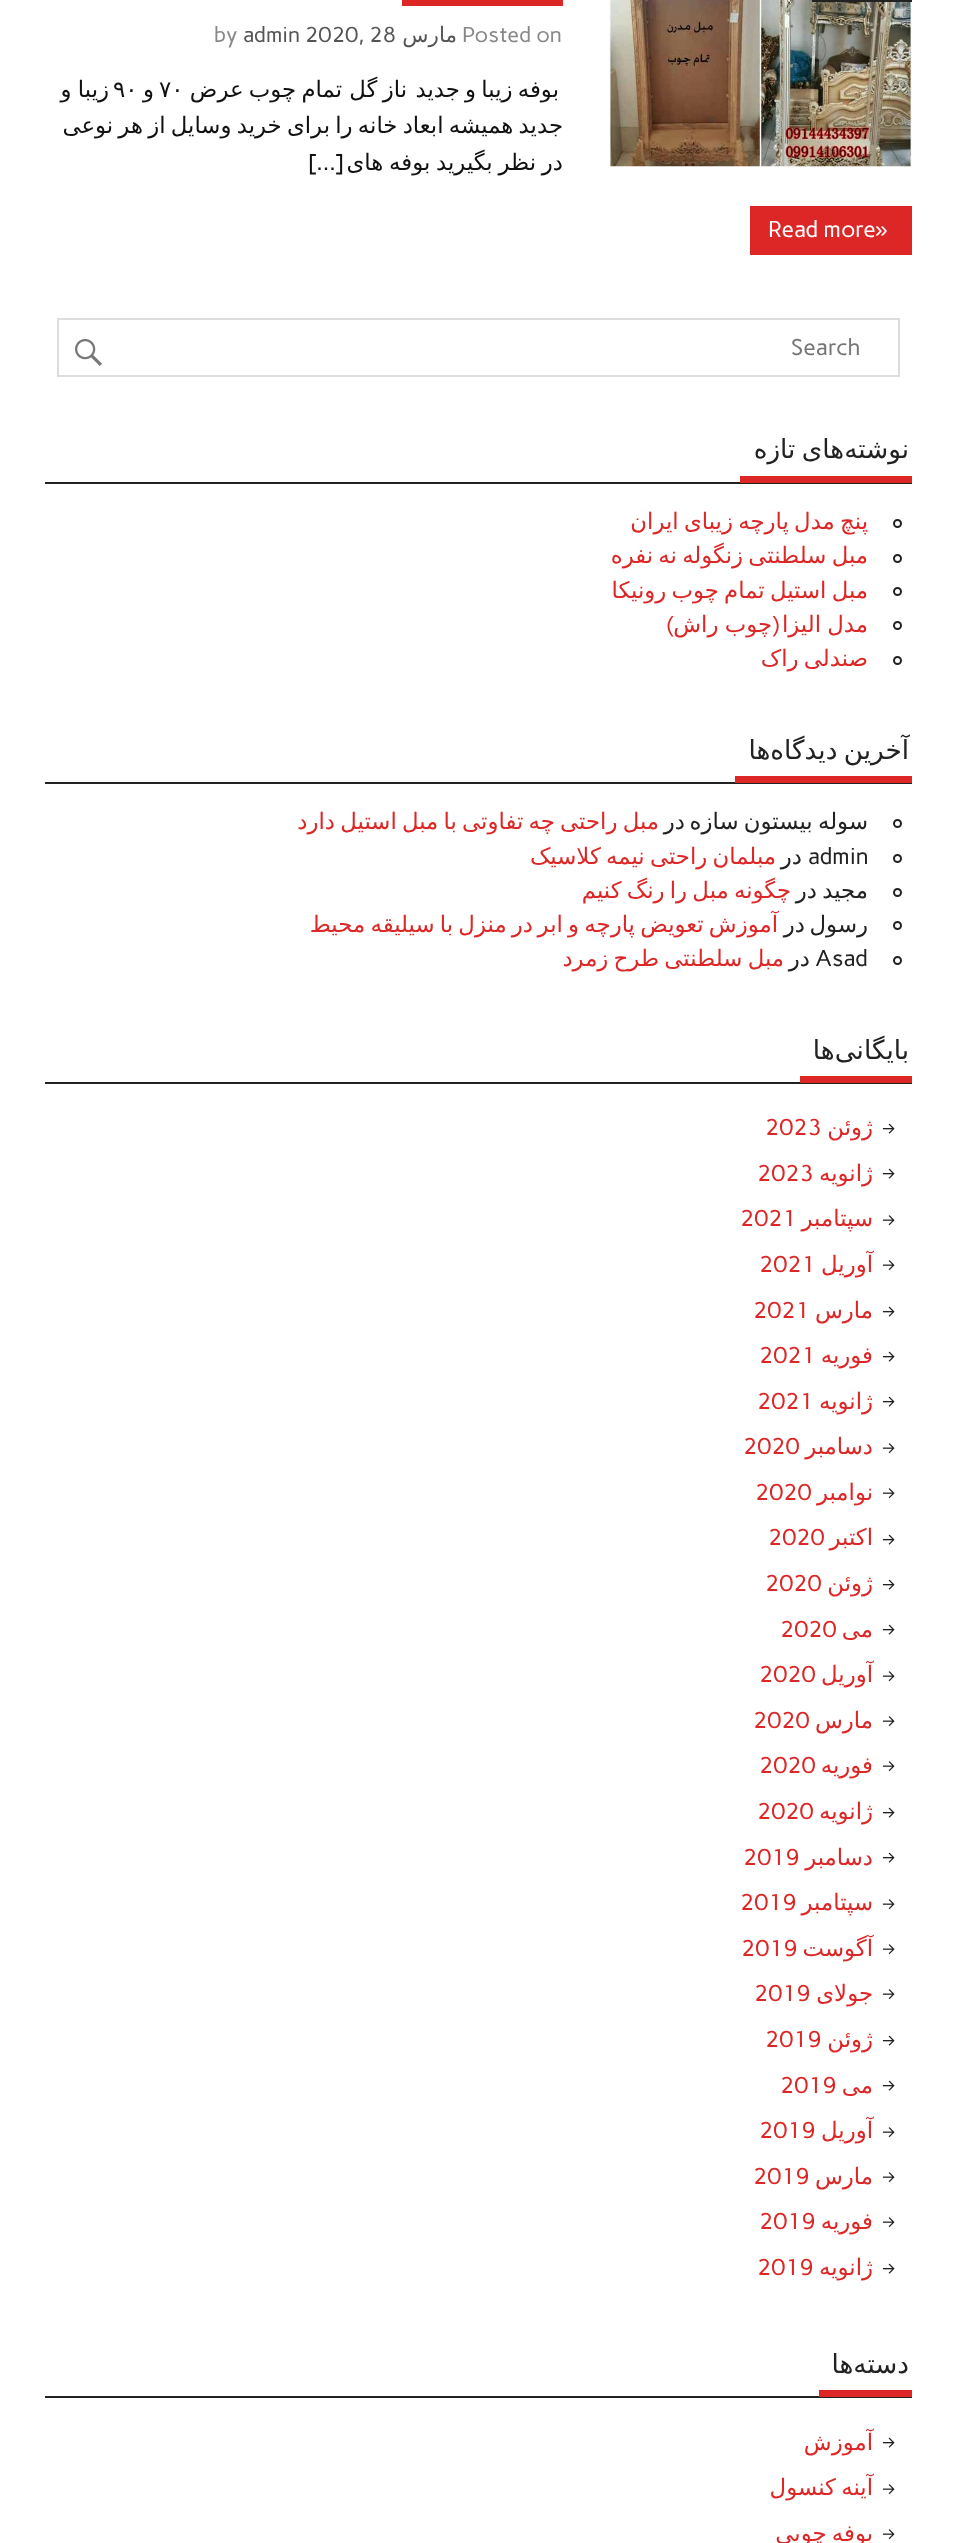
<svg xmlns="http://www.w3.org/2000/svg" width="956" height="2543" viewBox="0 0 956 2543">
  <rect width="100%" height="100%" fill="rgb(255,255,255)"/>
  <image x="609" y="0" width="303" height="167" href="pic1.png"/>
  <rect x="812" y="0" width="100" height="2" fill="rgb(34,34,34)"/>
  <rect x="402" y="0" width="161" height="6" fill="rgb(221,39,39)"/>
  <text x="462" y="42" font-family="Carme" font-size="21.5" fill="rgb(136,136,136)">Posted on</text>
  <text x="457" y="42" font-family="DejaVu Sans" font-size="21.5" direction="rtl" fill="rgb(85,85,85)">مارس</text>
  <g font-family="Carme" font-size="21.5" fill="rgb(85,85,85)">
    <text x="305" y="42">2020, 28</text>
    <text x="243" y="42">admin</text>
  </g>
  <text x="214" y="42" font-family="Carme" font-size="21.5" fill="rgb(136,136,136)">by</text>
  <g font-family="DejaVu Sans" font-size="22.8" direction="rtl" fill="rgb(17,17,17)">
    <text x="559" y="97" word-spacing="-2">بوفه زیبا و جدید</text>
    <text x="407" y="97" word-spacing="-2">ناز گل</text>
    <text x="342" y="97" word-spacing="-2">تمام چوب عرض</text>
  </g>
  <text x="159" y="97" font-family="DejaVu Sans" font-size="22.8" fill="rgb(17,17,17)">۷۰</text>
  <text x="154" y="97" font-family="DejaVu Sans" font-size="22.8" direction="rtl" fill="rgb(17,17,17)">و</text>
  <text x="113" y="97" font-family="DejaVu Sans" font-size="22.8" fill="rgb(17,17,17)">۹۰</text>
  <g font-family="DejaVu Sans" font-size="22.8" direction="rtl" fill="rgb(17,17,17)">
    <text x="109" y="97" word-spacing="-1">زیبا و</text>
    <text>
      <tspan x="563" y="133" word-spacing="-2">جدید همیشه ابعاد خانه را برای خرید وسایل از هر نوعی</tspan>
      <tspan x="563" y="170" word-spacing="-1.5">در نظر بگیرید بوفه های</tspan>
    </text>
  </g>
  <text x="343" y="170" font-family="Carme" font-size="22.8" direction="rtl" fill="rgb(17,17,17)">[…]</text>
  <rect x="750" y="206" width="162" height="49" fill="rgb(221,39,39)"/>
  <text x="875" y="237" font-family="Liberation Sans" font-size="22.8" fill="rgb(255,255,255)">»</text>
  <text x="768" y="237" font-family="Carme" font-size="22.8" fill="rgb(255,255,255)">Read more</text>
  <rect x="58" y="319" width="841" height="57" fill="none" stroke="rgb(221,221,221)" stroke-width="2"/>
  <text x="791" y="355" font-family="Carme" font-size="22.8" fill="rgb(117,117,117)">Search</text>
  <image x="75" y="339" width="27" height="27" href="pic2.png"/>
  <rect x="45" y="482" width="867" height="2" fill="rgb(34,34,34)"/>
  <rect x="740" y="476" width="172" height="7" fill="rgb(221,39,39)"/>
  <text x="909" y="458" word-spacing="-2" font-family="DejaVu Sans" font-size="26.25" direction="rtl" fill="rgb(34,34,34)">نوشته‌های تازه</text>
  <circle cx="897.5" cy="523.5" r="3.5" fill="none" stroke="rgb(34,34,34)" stroke-width="2"/>
  <text x="868" y="529" word-spacing="-2" font-family="DejaVu Sans" font-size="22.8" direction="rtl" fill="rgb(221,39,39)">پنچ مدل پارچه زیبای ایران</text>
  <circle cx="897.5" cy="558.5" r="3.5" fill="none" stroke="rgb(34,34,34)" stroke-width="2"/>
  <text x="868" y="563" word-spacing="-2" font-family="DejaVu Sans" font-size="22.8" direction="rtl" fill="rgb(221,39,39)">مبل سلطنتی زنگوله نه نفره</text>
  <circle cx="897.5" cy="591.5" r="3.5" fill="none" stroke="rgb(34,34,34)" stroke-width="2"/>
  <text x="868" y="598" word-spacing="-2" font-family="DejaVu Sans" font-size="22.8" direction="rtl" fill="rgb(221,39,39)">مبل استیل تمام چوب رونیکا</text>
  <circle cx="897.5" cy="625.5" r="3.5" fill="none" stroke="rgb(34,34,34)" stroke-width="2"/>
  <text x="868" y="632" word-spacing="-1" font-family="DejaVu Sans" font-size="22.8" direction="rtl" fill="rgb(221,39,39)">مدل الیزا</text>
  <text x="779" y="632" font-family="Carme" font-size="22.8" direction="rtl" fill="rgb(221,39,39)">(</text>
  <text x="772" y="632" word-spacing="-1" font-family="DejaVu Sans" font-size="22.8" direction="rtl" fill="rgb(221,39,39)">چوب راش</text>
  <text x="674" y="632" font-family="Carme" font-size="22.8" direction="rtl" fill="rgb(221,39,39)">)</text>
  <circle cx="897.5" cy="660.5" r="3.5" fill="none" stroke="rgb(34,34,34)" stroke-width="2"/>
  <text x="868" y="666" word-spacing="-2" font-family="DejaVu Sans" font-size="22.8" direction="rtl" fill="rgb(221,39,39)">صندلی راک</text>
  <rect x="45" y="782" width="867" height="2" fill="rgb(34,34,34)"/>
  <rect x="735" y="776" width="177" height="7" fill="rgb(221,39,39)"/>
  <text x="909" y="759" word-spacing="-2" font-family="DejaVu Sans" font-size="26.25" direction="rtl" fill="rgb(34,34,34)">آخرین دیدگاه‌ها</text>
  <circle cx="897.5" cy="823.5" r="3.5" fill="none" stroke="rgb(34,34,34)" stroke-width="2"/>
  <g font-family="DejaVu Sans" font-size="22.8" direction="rtl" fill="rgb(34,34,34)">
    <text x="868" y="829" word-spacing="-2">سوله بیستون سازه</text>
    <text x="685" y="829">در</text>
  </g>
  <text x="659" y="829" word-spacing="-2" font-family="DejaVu Sans" font-size="22.8" direction="rtl" fill="rgb(221,39,39)">مبل راحتی چه تفاوتی با مبل استیل دارد</text>
  <circle cx="897.5" cy="858.5" r="3.5" fill="none" stroke="rgb(34,34,34)" stroke-width="2"/>
  <text x="808" y="864" font-family="Carme" font-size="22.8" fill="rgb(34,34,34)">admin</text>
  <text x="802" y="864" font-family="DejaVu Sans" font-size="22.8" direction="rtl" fill="rgb(34,34,34)">در</text>
  <text x="776" y="864" word-spacing="-2" font-family="DejaVu Sans" font-size="22.8" direction="rtl" fill="rgb(221,39,39)">مبلمان راحتی نیمه کلاسیک</text>
  <circle cx="897.5" cy="892.5" r="3.5" fill="none" stroke="rgb(34,34,34)" stroke-width="2"/>
  <g font-family="DejaVu Sans" font-size="22.8" direction="rtl" fill="rgb(34,34,34)">
    <text x="868" y="898">مجید</text>
    <text x="817" y="898">در</text>
  </g>
  <text x="791" y="898" word-spacing="-2" font-family="DejaVu Sans" font-size="22.8" direction="rtl" fill="rgb(221,39,39)">چگونه مبل را رنگ کنیم</text>
  <circle cx="897.5" cy="925.5" r="3.5" fill="none" stroke="rgb(34,34,34)" stroke-width="2"/>
  <g font-family="DejaVu Sans" font-size="22.8" direction="rtl" fill="rgb(34,34,34)">
    <text x="868" y="932">رسول</text>
    <text x="805" y="932">در</text>
  </g>
  <g font-family="DejaVu Sans" font-size="22.8" direction="rtl" fill="rgb(221,39,39)">
    <text x="778" y="932" word-spacing="-2">آموزش تعویض پارچه و ابر</text>
    <text x="533" y="932" word-spacing="-2">در منزل با سیلیقه محیط</text>
  </g>
  <circle cx="897.5" cy="960.5" r="3.5" fill="none" stroke="rgb(34,34,34)" stroke-width="2"/>
  <text x="815" y="966" font-family="Carme" font-size="22.8" fill="rgb(34,34,34)">Asad</text>
  <text x="810" y="966" font-family="DejaVu Sans" font-size="22.8" direction="rtl" fill="rgb(34,34,34)">در</text>
  <text x="784" y="966" word-spacing="-2" font-family="DejaVu Sans" font-size="22.8" direction="rtl" fill="rgb(221,39,39)">مبل سلطنتی طرح زمرد</text>
  <rect x="45" y="1082" width="867" height="2" fill="rgb(34,34,34)"/>
  <rect x="800" y="1076" width="112" height="7" fill="rgb(221,39,39)"/>
  <text x="909" y="1059" font-family="DejaVu Sans" font-size="26.25" direction="rtl" fill="rgb(34,34,34)">بایگانی‌ها</text>
  <image x="882" y="1123" width="13" height="11" href="pic3.png"/>
  <text x="873" y="1135" font-family="DejaVu Sans" font-size="22.8" direction="rtl" fill="rgb(221,39,39)">ژوئن</text>
  <text x="765" y="1135" font-family="Carme" font-size="22.8" fill="rgb(221,39,39)">2023</text>
  <image x="882" y="1168" width="13" height="11" href="pic3.png"/>
  <text x="873" y="1181" font-family="DejaVu Sans" font-size="22.8" direction="rtl" fill="rgb(221,39,39)">ژانویه</text>
  <text x="757" y="1181" font-family="Carme" font-size="22.8" fill="rgb(221,39,39)">2023</text>
  <image x="882" y="1215" width="13" height="11" href="pic4.png"/>
  <text x="873" y="1226" font-family="DejaVu Sans" font-size="22.8" direction="rtl" fill="rgb(221,39,39)">سپتامبر</text>
  <text x="740" y="1226" font-family="Carme" font-size="22.8" fill="rgb(221,39,39)">2021</text>
  <image x="882" y="1260" width="13" height="11" href="pic4.png"/>
  <text x="873" y="1272" font-family="DejaVu Sans" font-size="22.8" direction="rtl" fill="rgb(221,39,39)">آوریل</text>
  <text x="759" y="1272" font-family="Carme" font-size="22.8" fill="rgb(221,39,39)">2021</text>
  <image x="882" y="1306" width="13" height="11" href="pic3.png"/>
  <text x="873" y="1318" font-family="DejaVu Sans" font-size="22.8" direction="rtl" fill="rgb(221,39,39)">مارس</text>
  <text x="753" y="1318" font-family="Carme" font-size="22.8" fill="rgb(221,39,39)">2021</text>
  <image x="882" y="1351" width="13" height="11" href="pic3.png"/>
  <text x="873" y="1363" font-family="DejaVu Sans" font-size="22.8" direction="rtl" fill="rgb(221,39,39)">فوریه</text>
  <text x="759" y="1363" font-family="Carme" font-size="22.8" fill="rgb(221,39,39)">2021</text>
  <image x="882" y="1396" width="13" height="11" href="pic3.png"/>
  <text x="873" y="1409" font-family="DejaVu Sans" font-size="22.8" direction="rtl" fill="rgb(221,39,39)">ژانویه</text>
  <text x="757" y="1409" font-family="Carme" font-size="22.8" fill="rgb(221,39,39)">2021</text>
  <image x="882" y="1443" width="13" height="11" href="pic4.png"/>
  <text x="873" y="1454" font-family="DejaVu Sans" font-size="22.8" direction="rtl" fill="rgb(221,39,39)">دسامبر</text>
  <text x="743" y="1454" font-family="Carme" font-size="22.8" fill="rgb(221,39,39)">2020</text>
  <image x="882" y="1488" width="13" height="11" href="pic4.png"/>
  <text x="873" y="1500" font-family="DejaVu Sans" font-size="22.8" direction="rtl" fill="rgb(221,39,39)">نوامبر</text>
  <text x="755" y="1500" font-family="Carme" font-size="22.8" fill="rgb(221,39,39)">2020</text>
  <image x="882" y="1534" width="13" height="11" href="pic3.png"/>
  <text x="873" y="1545" font-family="DejaVu Sans" font-size="22.8" direction="rtl" fill="rgb(221,39,39)">اکتبر</text>
  <text x="768" y="1545" font-family="Carme" font-size="22.8" fill="rgb(221,39,39)">2020</text>
  <image x="882" y="1579" width="13" height="11" href="pic3.png"/>
  <text x="873" y="1591" font-family="DejaVu Sans" font-size="22.8" direction="rtl" fill="rgb(221,39,39)">ژوئن</text>
  <text x="765" y="1591" font-family="Carme" font-size="22.8" fill="rgb(221,39,39)">2020</text>
  <image x="882" y="1624" width="13" height="11" href="pic3.png"/>
  <text x="873" y="1637" font-family="DejaVu Sans" font-size="22.8" direction="rtl" fill="rgb(221,39,39)">می</text>
  <text x="780" y="1637" font-family="Carme" font-size="22.8" fill="rgb(221,39,39)">2020</text>
  <image x="882" y="1671" width="13" height="11" href="pic4.png"/>
  <text x="873" y="1682" font-family="DejaVu Sans" font-size="22.8" direction="rtl" fill="rgb(221,39,39)">آوریل</text>
  <text x="759" y="1682" font-family="Carme" font-size="22.8" fill="rgb(221,39,39)">2020</text>
  <image x="882" y="1716" width="13" height="11" href="pic4.png"/>
  <text x="873" y="1728" font-family="DejaVu Sans" font-size="22.8" direction="rtl" fill="rgb(221,39,39)">مارس</text>
  <text x="753" y="1728" font-family="Carme" font-size="22.8" fill="rgb(221,39,39)">2020</text>
  <image x="882" y="1761" width="13" height="11" href="pic4.png"/>
  <text x="873" y="1773" font-family="DejaVu Sans" font-size="22.8" direction="rtl" fill="rgb(221,39,39)">فوریه</text>
  <text x="759" y="1773" font-family="Carme" font-size="22.8" fill="rgb(221,39,39)">2020</text>
  <image x="882" y="1807" width="13" height="11" href="pic3.png"/>
  <text x="873" y="1819" font-family="DejaVu Sans" font-size="22.8" direction="rtl" fill="rgb(221,39,39)">ژانویه</text>
  <text x="757" y="1819" font-family="Carme" font-size="22.8" fill="rgb(221,39,39)">2020</text>
  <image x="882" y="1852" width="13" height="11" href="pic3.png"/>
  <text x="873" y="1865" font-family="DejaVu Sans" font-size="22.8" direction="rtl" fill="rgb(221,39,39)">دسامبر</text>
  <text x="743" y="1865" font-family="Carme" font-size="22.8" fill="rgb(221,39,39)">2019</text>
  <image x="882" y="1899" width="13" height="11" href="pic4.png"/>
  <text x="873" y="1910" font-family="DejaVu Sans" font-size="22.8" direction="rtl" fill="rgb(221,39,39)">سپتامبر</text>
  <text x="740" y="1910" font-family="Carme" font-size="22.8" fill="rgb(221,39,39)">2019</text>
  <image x="882" y="1944" width="13" height="11" href="pic4.png"/>
  <text x="873" y="1956" font-family="DejaVu Sans" font-size="22.8" direction="rtl" fill="rgb(221,39,39)">آگوست</text>
  <text x="741" y="1956" font-family="Carme" font-size="22.8" fill="rgb(221,39,39)">2019</text>
  <image x="882" y="1989" width="13" height="11" href="pic4.png"/>
  <text x="873" y="2001" font-family="DejaVu Sans" font-size="22.8" direction="rtl" fill="rgb(221,39,39)">جولای</text>
  <text x="754" y="2001" font-family="Carme" font-size="22.8" fill="rgb(221,39,39)">2019</text>
  <image x="882" y="2035" width="13" height="11" href="pic3.png"/>
  <text x="873" y="2047" font-family="DejaVu Sans" font-size="22.8" direction="rtl" fill="rgb(221,39,39)">ژوئن</text>
  <text x="765" y="2047" font-family="Carme" font-size="22.8" fill="rgb(221,39,39)">2019</text>
  <image x="882" y="2080" width="13" height="11" href="pic3.png"/>
  <text x="873" y="2093" font-family="DejaVu Sans" font-size="22.8" direction="rtl" fill="rgb(221,39,39)">می</text>
  <text x="780" y="2093" font-family="Carme" font-size="22.8" fill="rgb(221,39,39)">2019</text>
  <image x="882" y="2127" width="13" height="11" href="pic4.png"/>
  <text x="873" y="2138" font-family="DejaVu Sans" font-size="22.8" direction="rtl" fill="rgb(221,39,39)">آوریل</text>
  <text x="759" y="2138" font-family="Carme" font-size="22.8" fill="rgb(221,39,39)">2019</text>
  <image x="882" y="2172" width="13" height="11" href="pic4.png"/>
  <text x="873" y="2184" font-family="DejaVu Sans" font-size="22.8" direction="rtl" fill="rgb(221,39,39)">مارس</text>
  <text x="753" y="2184" font-family="Carme" font-size="22.8" fill="rgb(221,39,39)">2019</text>
  <image x="882" y="2217" width="13" height="11" href="pic4.png"/>
  <text x="873" y="2229" font-family="DejaVu Sans" font-size="22.8" direction="rtl" fill="rgb(221,39,39)">فوریه</text>
  <text x="759" y="2229" font-family="Carme" font-size="22.8" fill="rgb(221,39,39)">2019</text>
  <image x="882" y="2263" width="13" height="11" href="pic3.png"/>
  <text x="873" y="2275" font-family="DejaVu Sans" font-size="22.8" direction="rtl" fill="rgb(221,39,39)">ژانویه</text>
  <text x="757" y="2275" font-family="Carme" font-size="22.8" fill="rgb(221,39,39)">2019</text>
  <rect x="45" y="2396" width="867" height="2" fill="rgb(34,34,34)"/>
  <rect x="819" y="2390" width="93" height="7" fill="rgb(221,39,39)"/>
  <text x="909" y="2373" font-family="DejaVu Sans" font-size="26.25" direction="rtl" fill="rgb(34,34,34)">دسته‌ها</text>
  <image x="882" y="2437" width="13" height="11" href="pic3.png"/>
  <text x="873" y="2450" font-family="DejaVu Sans" font-size="22.8" direction="rtl" fill="rgb(221,39,39)">آموزش</text>
  <image x="882" y="2484" width="13" height="11" href="pic4.png"/>
  <text x="873" y="2495" word-spacing="-2" font-family="DejaVu Sans" font-size="22.8" direction="rtl" fill="rgb(221,39,39)">آینه کنسول</text>
  <image x="882" y="2529" width="13" height="11" href="pic4.png"/>
  <text x="873" y="2541" word-spacing="-2" font-family="DejaVu Sans" font-size="22.8" direction="rtl" fill="rgb(221,39,39)">بوفه چوبی</text>
</svg>
